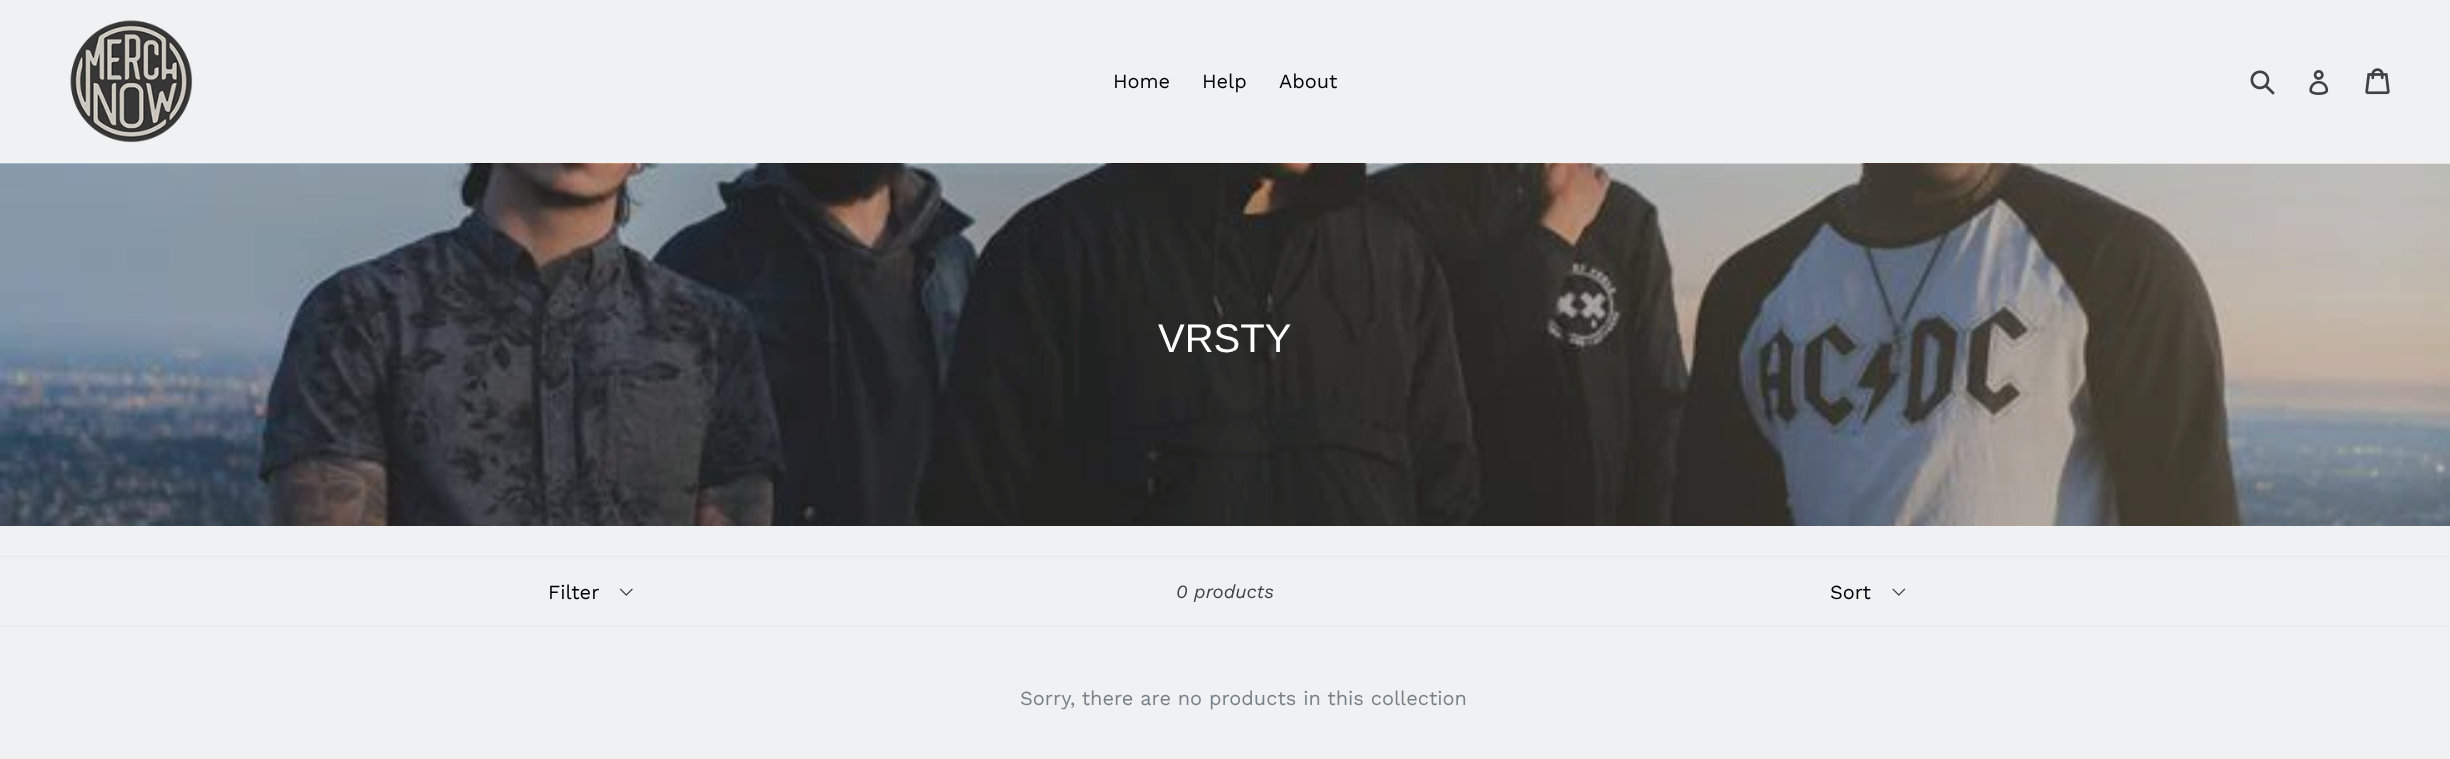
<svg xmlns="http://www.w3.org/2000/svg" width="2450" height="759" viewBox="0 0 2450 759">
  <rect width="100%" height="100%" fill="rgb(240,241,242)"/>
  <image x="70" y="20" width="123" height="123" href="pic1.png"/>
  <g font-family="Work Sans" font-size="20" fill="rgb(0,0,0)">
    <text x="1113" y="88">Home</text>
    <text x="1202" y="88">Help</text>
    <text x="1279" y="88">About</text>
  </g>
  <image x="2250" y="70" width="25" height="25" href="pic2.png"/>
  <image x="2309" y="70" width="20" height="25" href="pic3.png"/>
  <image x="2365" y="68" width="25" height="27" href="pic4.png"/>
  <image x="0" y="163" width="2450" height="363" href="pic5.png"/>
  <text x="1158" y="352" font-family="Liberation Sans" font-size="40" fill="rgb(255,255,255)">VRSTY</text>
  <rect x="0" y="556" width="2450" height="1" fill="rgb(232,233,235)"/>
  <rect x="0" y="626" width="2450" height="1" fill="rgb(232,233,235)"/>
  <image x="619" y="588" width="14" height="8" href="pic6.png"/>
  <text x="548" y="599" font-family="Work Sans" font-size="20" fill="rgb(0,0,0)">Filter</text>
  <text x="1176" y="598" font-family="Work Sans" font-size="18.75" font-style="italic" fill="rgb(61,66,70)">0 products</text>
  <image x="1892" y="588" width="14" height="8" href="pic7.png"/>
  <text x="1830" y="599" font-family="Work Sans" font-size="20" fill="rgb(0,0,0)">Sort</text>
  <text x="1020" y="705" font-family="Work Sans" font-size="20" fill="rgb(120,129,136)">Sorry, there are no products in this collection</text>
</svg>
